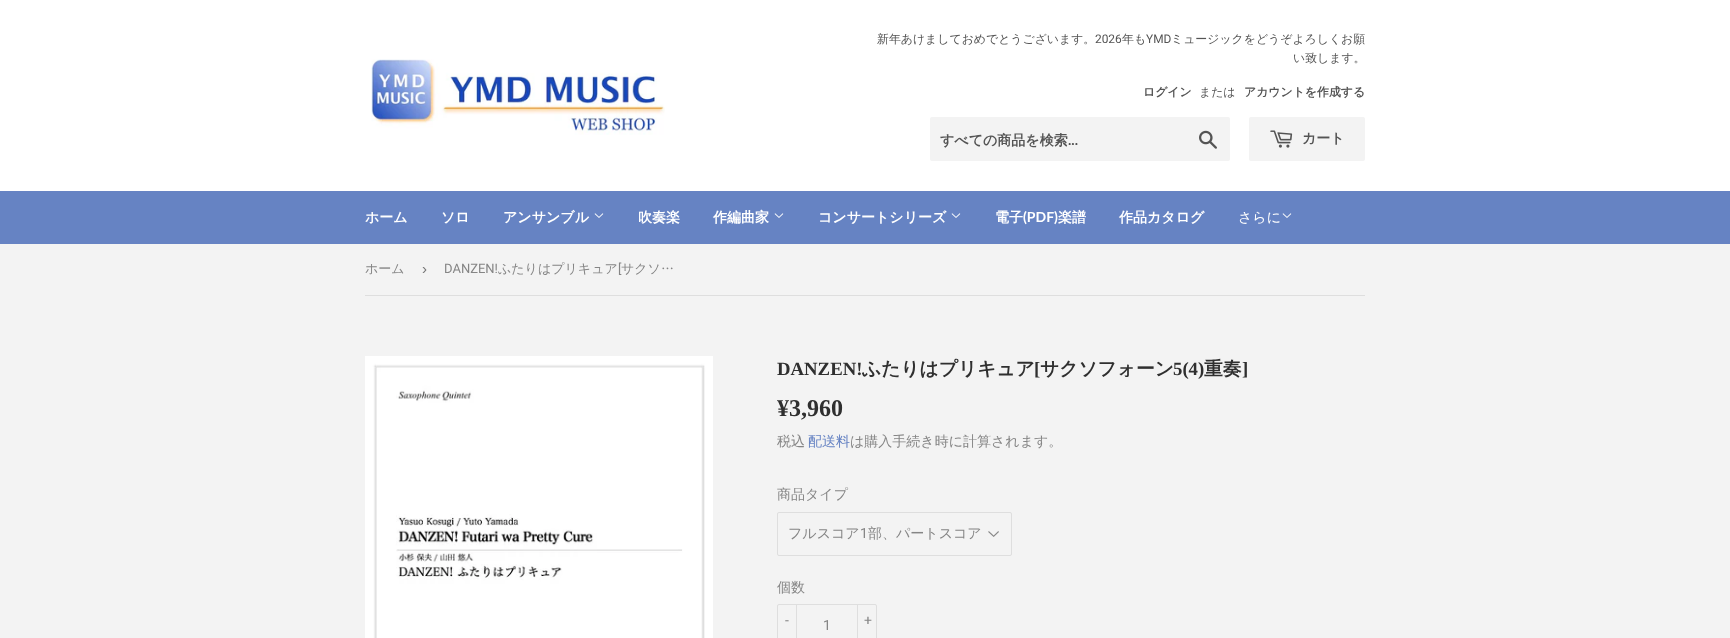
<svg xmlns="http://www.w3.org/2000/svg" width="1730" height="638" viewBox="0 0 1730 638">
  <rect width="100%" height="100%" fill="rgb(243,243,243)"/>
  <rect x="0" y="0" width="1730" height="191" fill="rgb(255,255,255)"/>
  <image x="371" y="59" width="294" height="76" href="pic1.png"/>
  <text x="877" y="43" font-family="WenQuanYi Zen Hei" font-size="11.9" font-weight="500" fill="rgb(84,84,84)">新年あけましておめでとうございます。</text>
  <text x="1095" y="43" font-family="Roboto" font-size="11.9" fill="rgb(84,84,84)">2026</text>
  <text x="1122" y="43" font-family="WenQuanYi Zen Hei" font-size="11.9" font-weight="500" fill="rgb(84,84,84)">年も</text>
  <text x="1146" y="43" font-family="Roboto" font-size="11.9" fill="rgb(84,84,84)">YMD</text>
  <g font-family="WenQuanYi Zen Hei" font-size="11.9" font-weight="500" fill="rgb(84,84,84)">
    <text x="1171" y="43">ミュージックをどうぞよろしくお願</text>
    <text x="1293" y="62">い致します。</text>
  </g>
  <text x="1143" y="96" font-family="WenQuanYi Zen Hei" font-size="11.9" font-weight="bold" fill="rgb(84,84,84)">ログイン</text>
  <text x="1199" y="96" font-family="WenQuanYi Zen Hei" font-size="11.9" font-weight="500" fill="rgb(84,84,84)">または</text>
  <text x="1244" y="96" font-family="WenQuanYi Zen Hei" font-size="11.9" font-weight="bold" fill="rgb(84,84,84)">アカウントを作成する</text>
  <rect x="930" y="117" width="300" height="44" rx="2" fill="rgb(243,243,243)"/>
  <text x="940" y="145" font-family="WenQuanYi Zen Hei" font-size="14" font-weight="bold" fill="rgb(84,84,84)">すべての商品を検索</text>
  <text x="1068" y="145" font-family="Lato" font-size="14" font-weight="bold" fill="rgb(84,84,84)">...</text>
  <image x="1199" y="130" width="18" height="19" href="pic2.png"/>
  <rect x="1249" y="117" width="116" height="44" rx="2" fill="rgb(243,243,243)"/>
  <image x="1270" y="130" width="23" height="18" href="pic3.png"/>
  <text x="1302" y="143" font-family="WenQuanYi Zen Hei" font-size="14" font-weight="bold" fill="rgb(84,84,84)">カート</text>
  <rect x="0" y="191" width="1730" height="53" fill="rgb(102,131,195)"/>
  <g font-family="WenQuanYi Zen Hei" font-size="14" font-weight="bold" fill="rgb(255,255,255)">
    <text x="365" y="222">ホーム</text>
    <text x="441" y="222">ソロ</text>
    <text x="503" y="222">アンサンブル</text>
  </g>
  <image x="594" y="213" width="10" height="5" href="pic4.png"/>
  <g font-family="WenQuanYi Zen Hei" font-size="14" font-weight="bold" fill="rgb(255,255,255)">
    <text x="638" y="222">吹奏楽</text>
    <text x="713" y="222">作編曲家</text>
  </g>
  <image x="774" y="213" width="10" height="5" href="pic4.png"/>
  <text x="818" y="222" font-family="WenQuanYi Zen Hei" font-size="14" font-weight="bold" fill="rgb(255,255,255)">コンサートシリーズ</text>
  <image x="951" y="213" width="10" height="5" href="pic4.png"/>
  <text x="995" y="222" font-family="WenQuanYi Zen Hei" font-size="14" font-weight="bold" fill="rgb(255,255,255)">電子</text>
  <text x="1023" y="222" font-family="Lato" font-size="14" font-weight="bold" fill="rgb(255,255,255)">(PDF)</text>
  <g font-family="WenQuanYi Zen Hei" font-size="14" font-weight="bold" fill="rgb(255,255,255)">
    <text x="1058" y="222">楽譜</text>
    <text x="1119" y="222">作品カタログ</text>
  </g>
  <text x="1238" y="222" font-family="WenQuanYi Zen Hei" font-size="14" font-weight="500" fill="rgb(255,255,255)">さらに</text>
  <image x="1282" y="213" width="10" height="5" href="pic4.png"/>
  <rect x="365" y="295" width="1000" height="1" fill="rgb(222,222,222)"/>
  <text x="365" y="273" font-family="WenQuanYi Zen Hei" font-size="13" font-weight="500" fill="rgb(133,133,133)">ホーム</text>
  <text x="422" y="274" font-family="Liberation Sans" font-size="15" fill="rgb(118,118,118)">›</text>
  <text x="444" y="273" font-family="Roboto" font-size="13" fill="rgb(133,133,133)">DANZEN!</text>
  <text x="498" y="273" font-family="WenQuanYi Zen Hei" font-size="13" font-weight="500" fill="rgb(133,133,133)">ふたりはプリキュア</text>
  <text x="618" y="273" font-family="Roboto" font-size="13" fill="rgb(133,133,133)">[</text>
  <text x="621" y="273" font-family="WenQuanYi Zen Hei" font-size="13" font-weight="500" fill="rgb(133,133,133)">サクソ…</text>
  <image x="365" y="356" width="348" height="282" href="pic5.png"/>
  <text x="777" y="375" font-family="Liberation Serif" font-size="18.75" font-weight="bold" fill="rgb(47,47,47)">DANZEN!</text>
  <text x="862" y="375" font-family="WenQuanYi Zen Hei" font-size="18.75" font-weight="bold" fill="rgb(47,47,47)">ふたりはプリキュア</text>
  <text x="1034" y="375" font-family="Liberation Serif" font-size="18.75" font-weight="bold" fill="rgb(47,47,47)">[</text>
  <text x="1040" y="375" font-family="WenQuanYi Zen Hei" font-size="18.75" font-weight="bold" fill="rgb(47,47,47)">サクソフォーン</text>
  <text x="1173" y="375" font-family="Liberation Serif" font-size="18.75" font-weight="bold" fill="rgb(47,47,47)">5(4)</text>
  <text x="1204" y="375" font-family="WenQuanYi Zen Hei" font-size="18.75" font-weight="bold" fill="rgb(47,47,47)">重奏</text>
  <text x="1242" y="375" font-family="Liberation Serif" font-size="18.75" font-weight="bold" fill="rgb(47,47,47)">]</text>
  <text x="777" y="416" font-family="Liberation Serif" font-size="24" font-weight="bold" fill="rgb(47,47,47)">¥3,960</text>
  <text x="777" y="446" font-family="WenQuanYi Zen Hei" font-size="14" font-weight="500" fill="rgb(133,133,133)">税込</text>
  <text x="808" y="446" font-family="WenQuanYi Zen Hei" font-size="14" font-weight="500" fill="rgb(102,131,195)">配送料</text>
  <g font-family="WenQuanYi Zen Hei" font-size="14" font-weight="500" fill="rgb(133,133,133)">
    <text x="850" y="446">は購入手続き時に計算されます。</text>
    <text x="777" y="499">商品タイプ</text>
  </g>
  <image x="988" y="531" width="11" height="6" href="pic6.png"/>
  <rect x="777.5" y="512.5" width="234" height="43" rx="1.5" fill="none" stroke="rgb(222,222,222)"/>
  <text x="788" y="538" font-family="WenQuanYi Zen Hei" font-size="14" font-weight="500" fill="rgb(133,133,133)">フルスコア</text>
  <text x="860" y="538" font-family="Roboto" font-size="14" fill="rgb(133,133,133)">1</text>
  <g font-family="WenQuanYi Zen Hei" font-size="14" font-weight="500" fill="rgb(133,133,133)">
    <text x="868" y="538">部、パートスコア</text>
    <text x="777" y="592">個数</text>
  </g>
  <rect x="777.5" y="604.5" width="99" height="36" rx="1.5" fill="none" stroke="rgb(222,222,222)"/>
  <rect x="796" y="604" width="1" height="34" fill="rgb(222,222,222)"/>
  <g font-family="Roboto" font-size="14" fill="rgb(133,133,133)">
    <text x="785" y="625">-</text>
    <text x="823" y="630">1</text>
  </g>
  <rect x="857" y="604" width="1" height="34" fill="rgb(222,222,222)"/>
  <text x="864" y="625" font-family="Roboto" font-size="14" fill="rgb(133,133,133)">+</text>
</svg>
